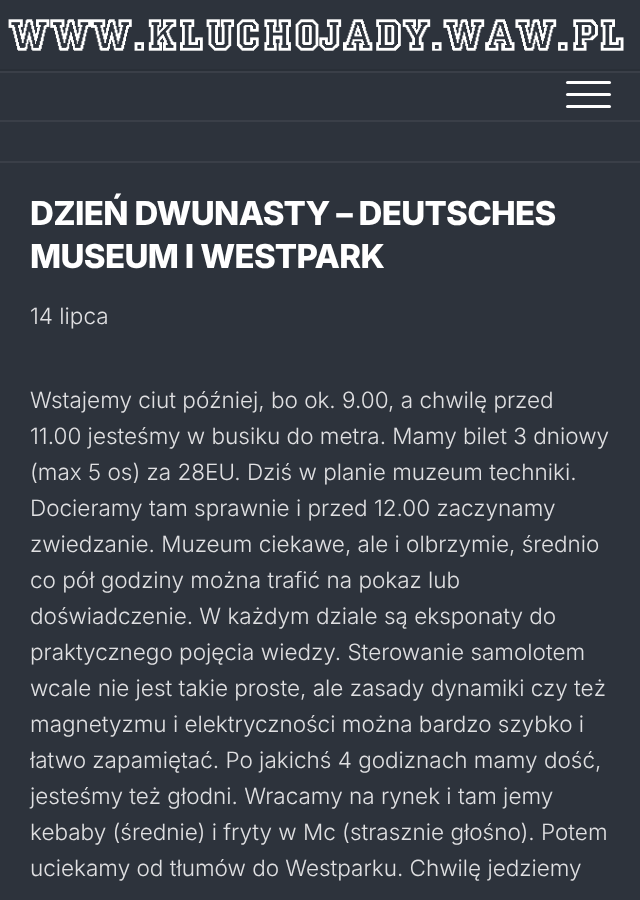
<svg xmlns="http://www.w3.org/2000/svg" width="640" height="900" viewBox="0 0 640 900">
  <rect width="100%" height="100%" fill="rgb(45,51,60)"/>
  <rect x="0" y="120" width="640" height="2" fill="rgb(58,63,72)"/>
  <rect x="0" y="69" width="640" height="2" fill="rgb(41,47,55)"/>
  <image x="8" y="19" width="616" height="32" href="pic1.png"/>
  <rect x="0" y="71" width="640" height="2" fill="rgb(58,63,72)"/>
  <rect x="566" y="81" width="45" height="3" rx="1.5" fill="rgb(255,255,255)"/>
  <rect x="566" y="93" width="45" height="3" rx="1.5" fill="rgb(255,255,255)"/>
  <rect x="566" y="105" width="45" height="3" rx="1.5" fill="rgb(255,255,255)"/>
  <rect x="0" y="161" width="640" height="2" fill="rgb(58,63,72)"/>
  <g font-family="Inter" font-size="33" font-weight="800" letter-spacing="-0.65" fill="rgb(255,255,255)">
    <text>
      <tspan x="30" y="225">DZIEŃ DWUNASTY – DEUTSCHES</tspan>
      <tspan x="30" y="268">MUSEUM I WESTPARK</tspan>
    </text>
  </g>
  <g font-family="Inter" font-size="22.5" font-weight="300" fill="rgb(224,224,226)">
    <text x="30" y="324">14 lipca</text>
    <text>
      <tspan x="30" y="408">Wstajemy ciut później, bo ok. 9.00, a chwilę przed</tspan>
      <tspan x="30" y="444">11.00 jesteśmy w busiku do metra. Mamy bilet 3 dniowy</tspan>
      <tspan x="30" y="480">(max 5 os) za 28EU. Dziś w planie muzeum techniki.</tspan>
      <tspan x="30" y="516">Docieramy tam sprawnie i przed 12.00 zaczynamy</tspan>
      <tspan x="30" y="552">zwiedzanie. Muzeum ciekawe, ale i olbrzymie, średnio</tspan>
      <tspan x="30" y="588">co pół godziny można trafić na pokaz lub</tspan>
      <tspan x="30" y="624">doświadczenie. W każdym dziale są eksponaty do</tspan>
      <tspan x="30" y="660">praktycznego pojęcia wiedzy. Sterowanie samolotem</tspan>
      <tspan x="30" y="696">wcale nie jest takie proste, ale zasady dynamiki czy też</tspan>
      <tspan x="30" y="732">magnetyzmu i elektryczności można bardzo szybko i</tspan>
      <tspan x="30" y="768">łatwo zapamiętać. Po jakichś 4 godiznach mamy dość,</tspan>
      <tspan x="30" y="804">jesteśmy też głodni. Wracamy na rynek i tam jemy</tspan>
      <tspan x="30" y="840">kebaby (średnie) i fryty w Mc (strasznie głośno). Potem</tspan>
      <tspan x="30" y="876">uciekamy od tłumów do Westparku. Chwilę jedziemy</tspan>
    </text>
  </g>
</svg>
